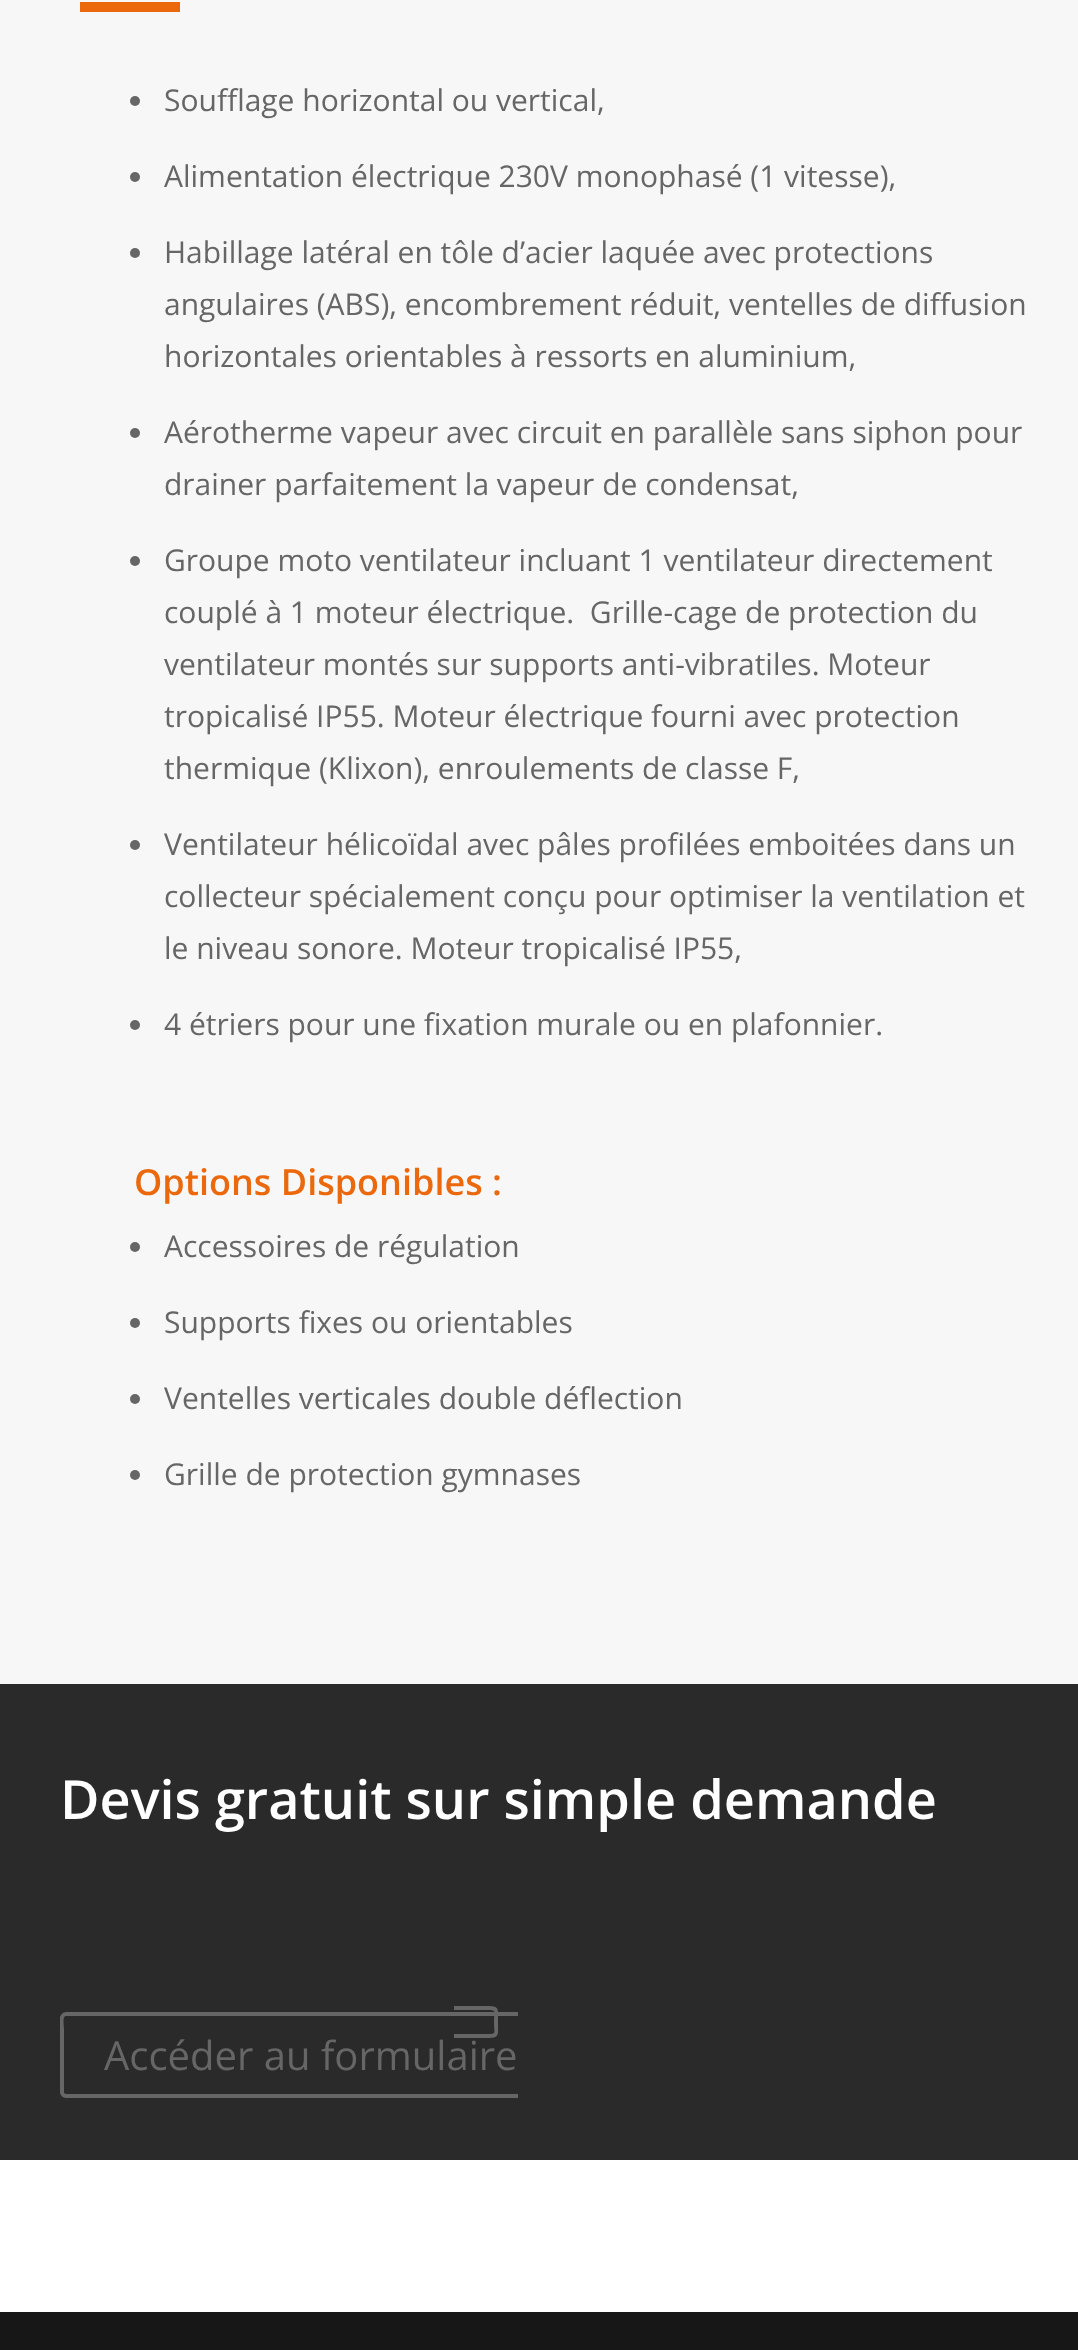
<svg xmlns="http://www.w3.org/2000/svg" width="1078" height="2350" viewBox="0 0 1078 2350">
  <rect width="100%" height="100%" fill="rgb(255,255,255)"/>
  <rect x="0" y="0" width="1078" height="1684" fill="rgb(247,247,247)"/>
  <rect x="80" y="2" width="100" height="10" fill="rgb(235,105,12)"/>
  <circle cx="135" cy="101" r="5" fill="rgb(102,102,102)"/>
  <text x="164" y="111" font-family="Open Sans" font-size="30" fill="rgb(102,102,102)">Soufflage horizontal ou vertical,</text>
  <circle cx="135" cy="177" r="5" fill="rgb(102,102,102)"/>
  <text x="164" y="187" font-family="Open Sans" font-size="30" fill="rgb(102,102,102)">Alimentation électrique 230V monophasé (1 vitesse),</text>
  <circle cx="135" cy="253" r="5" fill="rgb(102,102,102)"/>
  <g font-family="Open Sans" font-size="30" fill="rgb(102,102,102)">
    <text>
      <tspan x="164" y="263">Habillage latéral en tôle d’acier laquée avec protections</tspan>
      <tspan x="164" y="315">angulaires (ABS), encombrement réduit, ventelles de diffusion</tspan>
      <tspan x="164" y="367">horizontales orientables à ressorts en aluminium,</tspan>
    </text>
  </g>
  <circle cx="135" cy="433" r="5" fill="rgb(102,102,102)"/>
  <g font-family="Open Sans" font-size="30" fill="rgb(102,102,102)">
    <text>
      <tspan x="164" y="443">Aérotherme vapeur avec circuit en parallèle sans siphon pour</tspan>
      <tspan x="164" y="495">drainer parfaitement la vapeur de condensat,</tspan>
    </text>
  </g>
  <circle cx="135" cy="561" r="5" fill="rgb(102,102,102)"/>
  <g font-family="Open Sans" font-size="30" fill="rgb(102,102,102)">
    <text xml:space="preserve"><tspan x="164" y="571">Groupe moto ventilateur incluant 1 ventilateur directement</tspan><tspan x="164" y="623">couplé à 1 moteur électrique.  Grille-cage de protection du</tspan><tspan x="164" y="675">ventilateur montés sur supports anti-vibratiles. Moteur</tspan><tspan x="164" y="727">tropicalisé IP55. Moteur électrique fourni avec protection</tspan><tspan x="164" y="779">thermique (Klixon), enroulements de classe F,</tspan></text>
  </g>
  <circle cx="135" cy="845" r="5" fill="rgb(102,102,102)"/>
  <g font-family="Open Sans" font-size="30" fill="rgb(102,102,102)">
    <text>
      <tspan x="164" y="855">Ventilateur hélicoïdal avec pâles profilées emboitées dans un</tspan>
      <tspan x="164" y="907">collecteur spécialement conçu pour optimiser la ventilation et</tspan>
      <tspan x="164" y="959">le niveau sonore. Moteur tropicalisé IP55,</tspan>
    </text>
  </g>
  <circle cx="135" cy="1025" r="5" fill="rgb(102,102,102)"/>
  <text x="164" y="1035" font-family="Open Sans" font-size="30" fill="rgb(102,102,102)">4 étriers pour une fixation murale ou en plafonnier.</text>
  <text x="134" y="1195" font-family="Open Sans" font-size="36" font-weight="600" fill="rgb(235,105,12)">Options Disponibles :</text>
  <circle cx="135" cy="1247" r="5" fill="rgb(102,102,102)"/>
  <text x="164" y="1257" font-family="Open Sans" font-size="30" fill="rgb(102,102,102)">Accessoires de régulation</text>
  <circle cx="135" cy="1323" r="5" fill="rgb(102,102,102)"/>
  <text x="164" y="1333" font-family="Open Sans" font-size="30" fill="rgb(102,102,102)">Supports fixes ou orientables</text>
  <circle cx="135" cy="1399" r="5" fill="rgb(102,102,102)"/>
  <text x="164" y="1409" font-family="Open Sans" font-size="30" fill="rgb(102,102,102)">Ventelles verticales double déflection</text>
  <circle cx="135" cy="1475" r="5" fill="rgb(102,102,102)"/>
  <text x="164" y="1485" font-family="Open Sans" font-size="30" fill="rgb(102,102,102)">Grille de protection gymnases</text>
  <rect x="0" y="1684" width="1078" height="476" fill="rgb(42,42,42)"/>
  <text x="60" y="1819" font-family="Open Sans" font-size="54" font-weight="600" fill="rgb(255,255,255)">Devis gratuit sur simple demande</text>
  <path d="M66 2012H518V2098H66C63 2098 60 2095 60 2092V2018C60 2015 63 2012 66 2012ZM66 2016H518V2094H66L64 2093V2030C64 2026 62 2016 66 2016Z" fill="rgb(102,102,102)" fill-rule="evenodd"/>
  <text x="104" y="2070" font-family="Open Sans" font-size="40" fill="rgb(102,102,102)">Accéder au formulaire</text>
  <path d="M454 2006H486C500 2006 498 2008 498 2022C498 2036 500 2038 486 2038H454ZM454 2010H486C497 2010 494 2010 494 2022C494 2034 497 2034 486 2034H454Z" fill="rgb(102,102,102)" fill-rule="evenodd"/>
  <rect x="0" y="2312" width="1078" height="38" fill="rgb(23,23,23)"/>
</svg>
